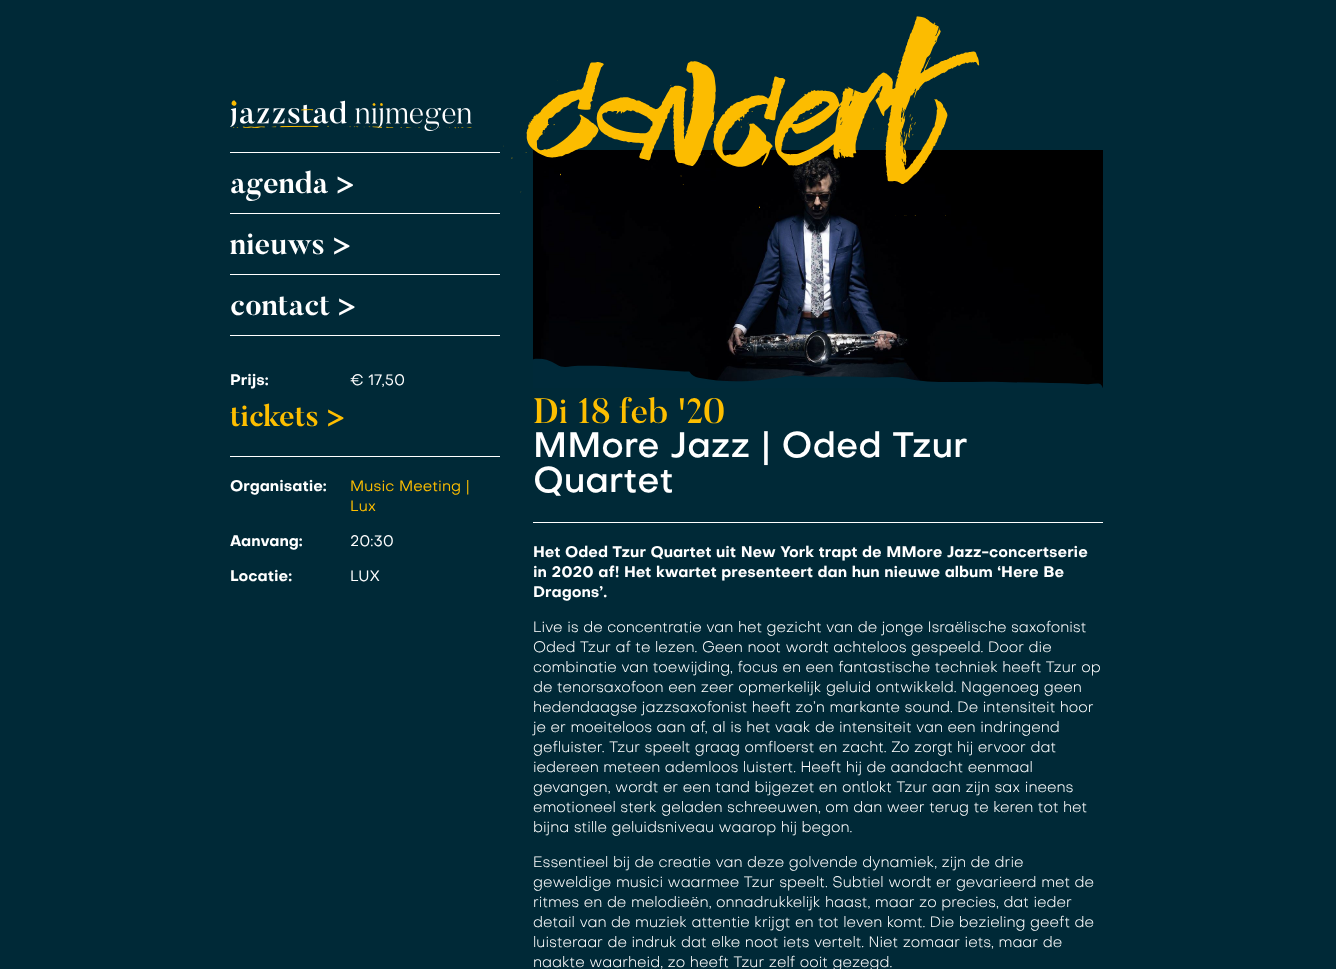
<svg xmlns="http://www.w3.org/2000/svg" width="1336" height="969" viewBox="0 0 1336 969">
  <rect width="100%" height="100%" fill="rgb(0,41,55)"/>
  <rect x="230" y="152" width="270" height="1" fill="rgb(255,255,255)"/>
  <image x="230" y="100" width="242" height="31" href="pic1.png"/>
  <rect x="230" y="213" width="270" height="1" fill="rgb(255,255,255)"/>
  <text x="230" y="193" font-family="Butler" font-size="30" font-weight="bold" fill="rgb(255,255,255)">agenda &gt;</text>
  <rect x="230" y="274" width="270" height="1" fill="rgb(255,255,255)"/>
  <text x="230" y="254" font-family="Butler" font-size="30" font-weight="bold" fill="rgb(255,255,255)">nieuws &gt;</text>
  <rect x="230" y="335" width="270" height="1" fill="rgb(255,255,255)"/>
  <text x="230" y="315" font-family="Butler" font-size="30" font-weight="bold" fill="rgb(255,255,255)">contact &gt;</text>
  <text x="230" y="385" font-family="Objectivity" font-size="15" font-weight="bold" fill="rgb(255,255,255)">Prijs:</text>
  <text x="350" y="385" font-family="Objectivity" font-size="15" fill="rgb(255,255,255)">€ 17,50</text>
  <text x="230" y="426" font-family="Butler" font-size="30" font-weight="bold" fill="rgb(253,190,0)">tickets &gt;</text>
  <rect x="230" y="456" width="270" height="1" fill="rgb(255,255,255)"/>
  <text x="230" y="491" font-family="Objectivity" font-size="15" font-weight="bold" fill="rgb(255,255,255)">Organisatie:</text>
  <g font-family="Objectivity" font-size="15" fill="rgb(253,190,0)">
    <text>
      <tspan x="350" y="491">Music Meeting |</tspan>
      <tspan x="350" y="511">Lux</tspan>
    </text>
  </g>
  <text x="230" y="546" font-family="Objectivity" font-size="15" font-weight="bold" fill="rgb(255,255,255)">Aanvang:</text>
  <text x="350" y="546" font-family="Objectivity" font-size="15" fill="rgb(255,255,255)">20:30</text>
  <text x="230" y="581" font-family="Objectivity" font-size="15" font-weight="bold" fill="rgb(255,255,255)">Locatie:</text>
  <text x="350" y="581" font-family="Objectivity" font-size="15" fill="rgb(255,255,255)">LUX</text>
  <image x="533" y="150" width="570" height="238" href="pic3.png"/>
  <image x="503" y="16" width="477" height="200" href="pic2.png"/>
  <image x="533" y="358" width="570" height="30" href="pic4.png"/>
  <text x="533" y="423" font-family="Butler" font-size="35" font-weight="500" fill="rgb(253,190,0)">Di 18 feb '20</text>
  <g font-family="Objectivity" font-size="35" font-weight="500" fill="rgb(255,255,255)">
    <text>
      <tspan x="533" y="457">MMore Jazz | Oded Tzur</tspan>
      <tspan x="533" y="492">Quartet</tspan>
    </text>
  </g>
  <rect x="533" y="522" width="570" height="1" fill="rgb(255,255,255)"/>
  <g font-family="Objectivity" font-size="15" font-weight="bold" fill="rgb(255,255,255)">
    <text>
      <tspan x="533" y="557">Het Oded Tzur Quartet uit New York trapt de MMore Jazz-concertserie</tspan>
      <tspan x="533" y="577">in 2020 af! Het kwartet presenteert dan hun nieuwe album ‘Here Be</tspan>
      <tspan x="533" y="597">Dragons’.</tspan>
    </text>
  </g>
  <g font-family="Objectivity" font-size="15" font-weight="300" fill="rgb(255,255,255)">
    <text>
      <tspan x="533" y="632">Live is de concentratie van het gezicht van de jonge Israëlische saxofonist</tspan>
      <tspan x="533" y="652">Oded Tzur af te lezen. Geen noot wordt achteloos gespeeld. Door die</tspan>
      <tspan x="533" y="672">combinatie van toewijding, focus en een fantastische techniek heeft Tzur op</tspan>
      <tspan x="533" y="692">de tenorsaxofoon een zeer opmerkelijk geluid ontwikkeld. Nagenoeg geen</tspan>
      <tspan x="533" y="712">hedendaagse jazzsaxofonist heeft zo’n markante sound. De intensiteit hoor</tspan>
      <tspan x="533" y="732">je er moeiteloos aan af, al is het vaak de intensiteit van een indringend</tspan>
      <tspan x="533" y="752">gefluister. Tzur speelt graag omfloerst en zacht. Zo zorgt hij ervoor dat</tspan>
      <tspan x="533" y="772">iedereen meteen ademloos luistert. Heeft hij de aandacht eenmaal</tspan>
      <tspan x="533" y="792">gevangen, wordt er een tand bijgezet en ontlokt Tzur aan zijn sax ineens</tspan>
      <tspan x="533" y="812">emotioneel sterk geladen schreeuwen, om dan weer terug te keren tot het</tspan>
      <tspan x="533" y="832">bijna stille geluidsniveau waarop hij begon.</tspan>
    </text>
    <text>
      <tspan x="533" y="867">Essentieel bij de creatie van deze golvende dynamiek, zijn de drie</tspan>
      <tspan x="533" y="887">geweldige musici waarmee Tzur speelt. Subtiel wordt er gevarieerd met de</tspan>
      <tspan x="533" y="907">ritmes en de melodieën, onnadrukkelijk haast, maar zo precies, dat ieder</tspan>
      <tspan x="533" y="927">detail van de muziek attentie krijgt en tot leven komt. Die bezieling geeft de</tspan>
      <tspan x="533" y="947">luisteraar de indruk dat elke noot iets vertelt. Niet zomaar iets, maar de</tspan>
      <tspan x="533" y="967">naakte waarheid, zo heeft Tzur zelf ooit gezegd.</tspan>
    </text>
  </g>
</svg>
